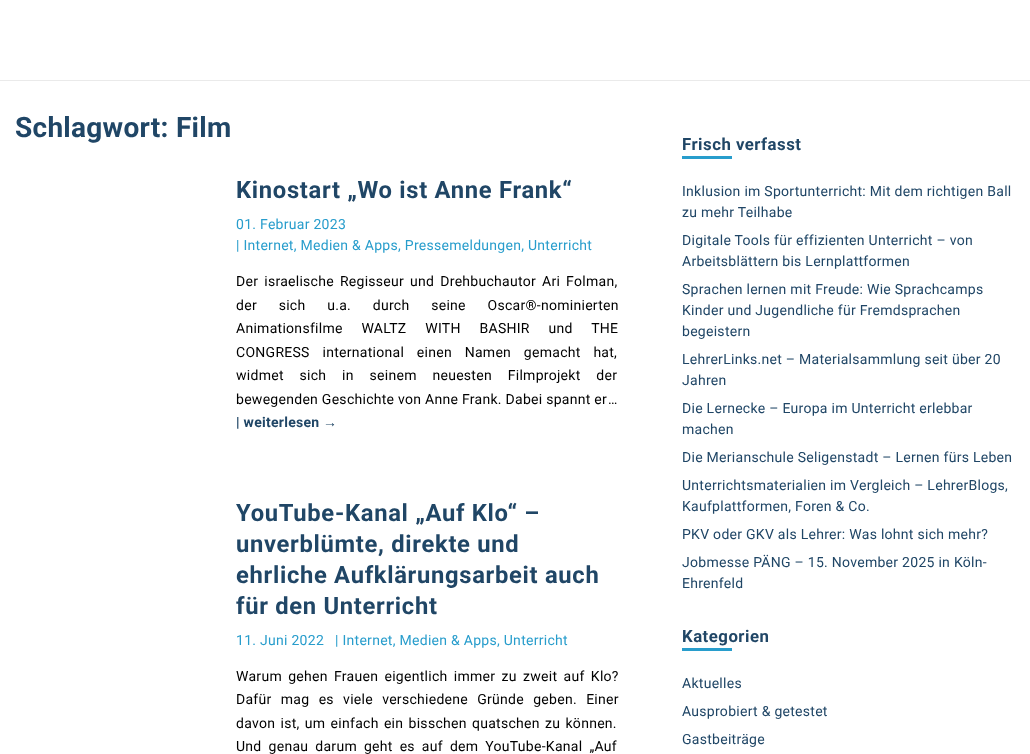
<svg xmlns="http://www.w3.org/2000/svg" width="1030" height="754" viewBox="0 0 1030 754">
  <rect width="100%" height="100%" fill="rgb(255,255,255)"/>
  <rect x="0" y="80" width="1030" height="1" fill="rgb(234,234,234)"/>
  <text x="15" y="137" font-family="Roboto" font-size="28" font-weight="bold" letter-spacing="0.28" fill="rgb(32,70,102)">Schlagwort: Film</text>
  <text x="236" y="198" font-family="Roboto" font-size="23.75" font-weight="bold" letter-spacing="0.7" fill="rgb(32,70,102)">Kinostart „Wo ist Anne Frank“</text>
  <g font-family="Roboto" font-size="14" letter-spacing="0.28" fill="rgb(40,157,204)">
    <text>
      <tspan x="236" y="229">01. Februar 2023</tspan>
      <tspan x="236" y="250">| Internet, Medien &amp; Apps, Pressemeldungen, Unterricht</tspan>
    </text>
  </g>
  <g font-family="Roboto" font-size="14" letter-spacing="0.28" fill="rgb(0,0,0)">
    <text>
      <tspan x="236" y="286" word-spacing="2.25">Der israelische Regisseur und Drehbuchautor Ari Folman,</tspan>
      <tspan x="236" y="310" word-spacing="18">der sich u.a. durch seine Oscar®-nominierten</tspan>
      <tspan x="236" y="333" word-spacing="15">Animationsfilme WALTZ WITH BASHIR und THE</tspan>
      <tspan x="236" y="357" word-spacing="9">CONGRESS international einen Namen gemacht hat,</tspan>
      <tspan x="236" y="380" word-spacing="12">widmet sich in seinem neuesten Filmprojekt der</tspan>
      <tspan x="236" y="404">bewegenden Geschichte von Anne Frank. Dabei spannt er</tspan>
    </text>
    <text x="608" y="404">…</text>
  </g>
  <text x="236" y="427" font-family="Roboto" font-size="14" font-weight="bold" letter-spacing="0.28" fill="rgb(32,70,102)">| weiterlesen</text>
  <text x="323" y="427" font-family="Liberation Sans" font-size="14" font-weight="bold" letter-spacing="0.28" fill="rgb(32,70,102)">→</text>
  <g font-family="Roboto" font-size="23.75" font-weight="bold" letter-spacing="0.7" fill="rgb(32,70,102)">
    <text>
      <tspan x="236" y="521">YouTube-Kanal „Auf Klo“ –</tspan>
      <tspan x="236" y="552">unverblümte, direkte und</tspan>
      <tspan x="236" y="583">ehrliche Aufklärungsarbeit auch</tspan>
      <tspan x="236" y="614">für den Unterricht</tspan>
    </text>
  </g>
  <g font-family="Roboto" font-size="14" letter-spacing="0.28" fill="rgb(40,157,204)">
    <text x="236" y="645">11. Juni 2022</text>
    <text x="335" y="645">| Internet, Medien &amp; Apps, Unterricht</text>
  </g>
  <g font-family="Roboto" font-size="14" letter-spacing="0.28" fill="rgb(0,0,0)">
    <text>
      <tspan x="236" y="681" word-spacing="2.5">Warum gehen Frauen eigentlich immer zu zweit auf Klo?</tspan>
      <tspan x="236" y="704" word-spacing="5.5">Dafür mag es viele verschiedene Gründe geben. Einer</tspan>
      <tspan x="236" y="728" word-spacing="1.5">davon ist, um einfach ein bisschen quatschen zu können.</tspan>
      <tspan x="236" y="751" word-spacing="3.25">Und genau darum geht es auf dem YouTube-Kanal „Auf</tspan>
    </text>
  </g>
  <text x="682" y="150" font-family="Roboto" font-size="16.75" font-weight="bold" letter-spacing="0.5" fill="rgb(32,70,102)">Frisch verfasst</text>
  <rect x="682" y="156" width="50" height="3" fill="rgb(40,157,204)"/>
  <g font-family="Roboto" font-size="14" letter-spacing="0.28" fill="rgb(32,70,102)">
    <text>
      <tspan x="682" y="196">Inklusion im Sportunterricht: Mit dem richtigen Ball</tspan>
      <tspan x="682" y="217">zu mehr Teilhabe</tspan>
    </text>
    <text>
      <tspan x="682" y="245">Digitale Tools für effizienten Unterricht – von</tspan>
      <tspan x="682" y="266">Arbeitsblättern bis Lernplattformen</tspan>
    </text>
    <text>
      <tspan x="682" y="294">Sprachen lernen mit Freude: Wie Sprachcamps</tspan>
      <tspan x="682" y="315">Kinder und Jugendliche für Fremdsprachen</tspan>
      <tspan x="682" y="336">begeistern</tspan>
    </text>
    <text>
      <tspan x="682" y="364">LehrerLinks.net – Materialsammlung seit über 20</tspan>
      <tspan x="682" y="385">Jahren</tspan>
    </text>
    <text>
      <tspan x="682" y="413">Die Lernecke – Europa im Unterricht erlebbar</tspan>
      <tspan x="682" y="434">machen</tspan>
    </text>
    <text x="682" y="462">Die Merianschule Seligenstadt – Lernen fürs Leben</text>
    <text>
      <tspan x="682" y="490">Unterrichtsmaterialien im Vergleich – LehrerBlogs,</tspan>
      <tspan x="682" y="511">Kaufplattformen, Foren &amp; Co.</tspan>
    </text>
    <text x="682" y="539">PKV oder GKV als Lehrer: Was lohnt sich mehr?</text>
    <text>
      <tspan x="682" y="567">Jobmesse PÄNG – 15. November 2025 in Köln-</tspan>
      <tspan x="682" y="588">Ehrenfeld</tspan>
    </text>
  </g>
  <text x="682" y="642" font-family="Roboto" font-size="16.75" font-weight="bold" letter-spacing="0.5" fill="rgb(32,70,102)">Kategorien</text>
  <rect x="682" y="648" width="50" height="3" fill="rgb(40,157,204)"/>
  <g font-family="Roboto" font-size="14" letter-spacing="0.28" fill="rgb(32,70,102)">
    <text x="682" y="688">Aktuelles</text>
    <text x="682" y="716">Ausprobiert &amp; getestet</text>
    <text x="682" y="744">Gastbeiträge</text>
  </g>
</svg>
